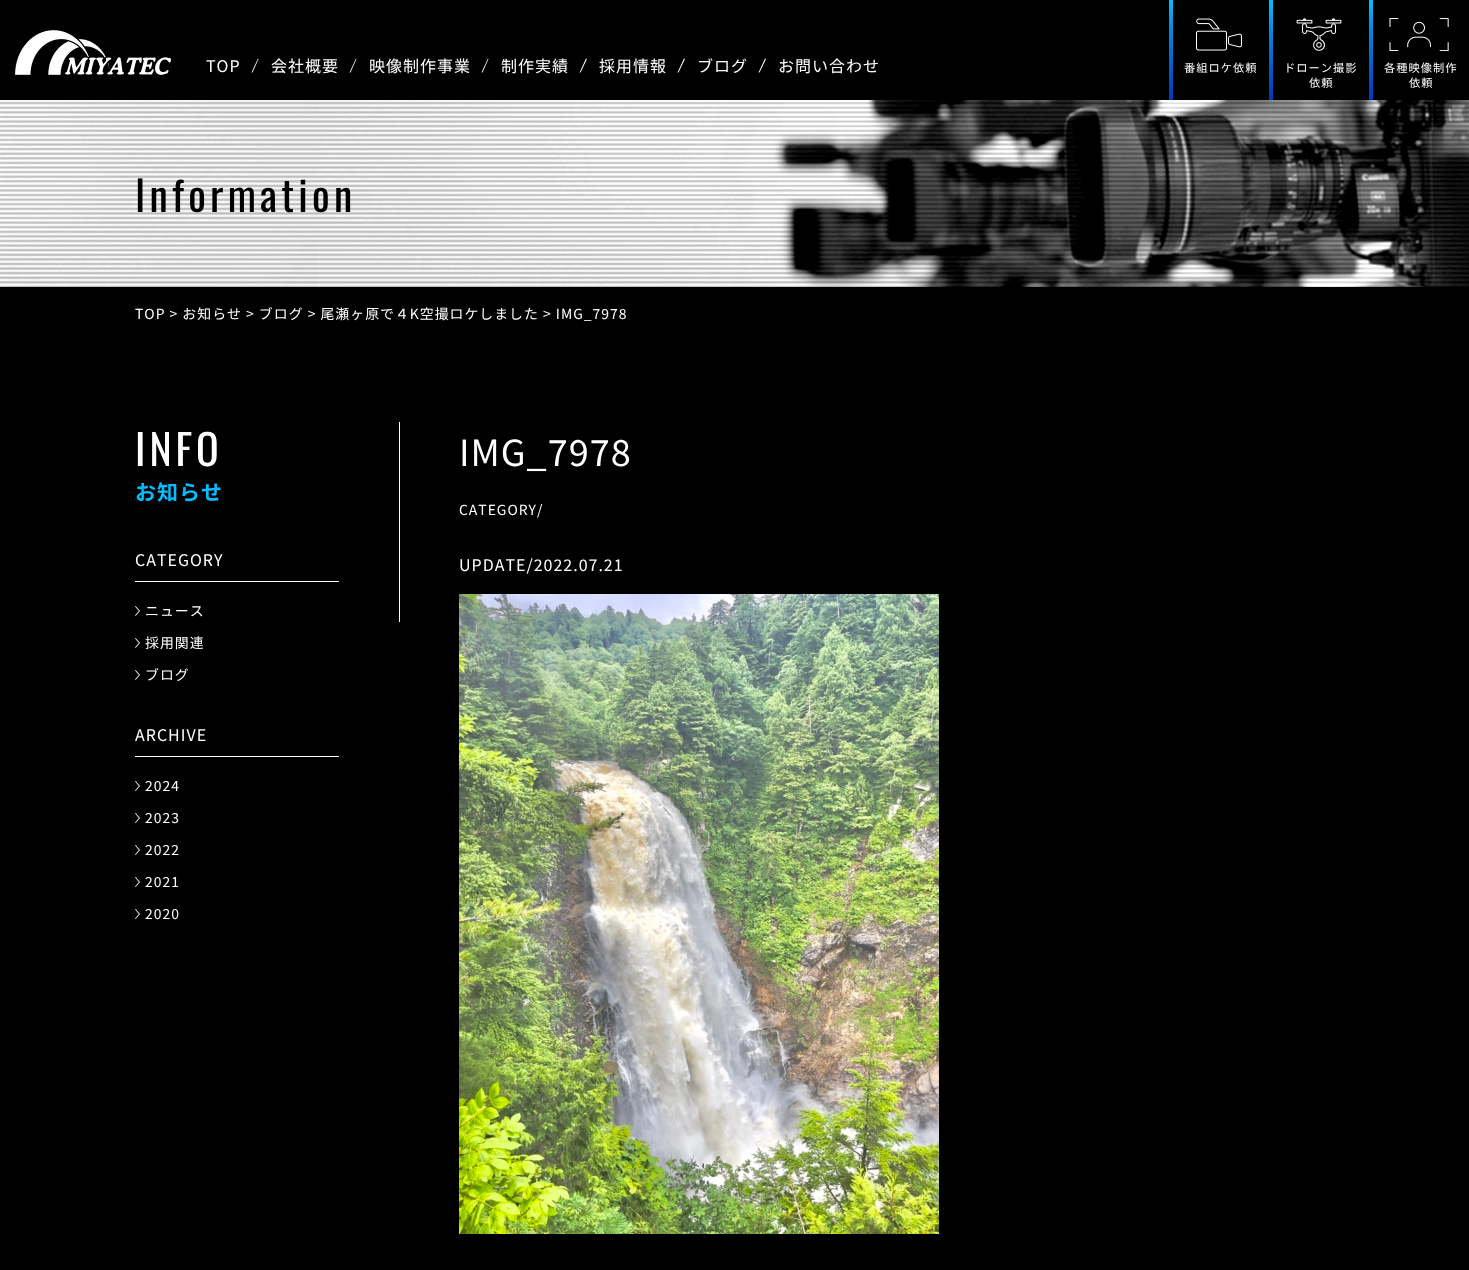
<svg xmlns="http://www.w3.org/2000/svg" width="1469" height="1270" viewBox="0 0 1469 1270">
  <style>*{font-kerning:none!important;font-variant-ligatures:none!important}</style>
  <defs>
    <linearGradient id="g1" gradientUnits="userSpaceOnUse" x1="1171" y1="100" x2="1171" y2="0"><stop offset="0" stop-color="rgb(0,55,185)"/><stop offset="0.65" stop-color="rgb(5,129,219)"/><stop offset="1" stop-color="rgb(4,190,254)"/></linearGradient>
    <linearGradient id="g2" gradientUnits="userSpaceOnUse" x1="1271" y1="100" x2="1271" y2="0"><stop offset="0" stop-color="rgb(0,55,185)"/><stop offset="0.65" stop-color="rgb(5,129,219)"/><stop offset="1" stop-color="rgb(4,190,254)"/></linearGradient>
    <linearGradient id="g3" gradientUnits="userSpaceOnUse" x1="1371" y1="100" x2="1371" y2="0"><stop offset="0" stop-color="rgb(0,55,185)"/><stop offset="0.65" stop-color="rgb(5,129,219)"/><stop offset="1" stop-color="rgb(4,190,254)"/></linearGradient>
  </defs>
  <rect width="100%" height="100%" fill="rgb(255,255,255)"/>
  <rect x="0" y="0" width="1469" height="100" fill="rgb(0,0,0)"/>
  <image x="15" y="30" width="156" height="45" href="pic1.png"/>
  <text x="206" y="72" font-family="Noto Sans JP" font-size="16" letter-spacing="1" fill="rgb(255,255,255)">TOP</text>
  <path d="M258 58.5L258.5 59L252.5 72.5H251.5Z" fill="rgb(255,255,255)"/>
  <text x="271" y="72" font-family="Noto Sans JP" font-size="16" letter-spacing="1" fill="rgb(255,255,255)">会社概要</text>
  <path d="M356 58.5L356.5 59L350.5 72.5H349.5Z" fill="rgb(255,255,255)"/>
  <text x="369" y="72" font-family="Noto Sans JP" font-size="16" letter-spacing="1" fill="rgb(255,255,255)">映像制作事業</text>
  <path d="M488 58.5L488.5 59L482.5 72.5H481.5Z" fill="rgb(255,255,255)"/>
  <text x="501" y="72" font-family="Noto Sans JP" font-size="16" letter-spacing="1" fill="rgb(255,255,255)">制作実績</text>
  <path d="M586 58.5L587 59L580.5 72.5H579.5Z" fill="rgb(255,255,255)"/>
  <text x="599" y="72" font-family="Noto Sans JP" font-size="16" letter-spacing="1" fill="rgb(255,255,255)">採用情報</text>
  <path d="M684 58.5L685 59L678.5 72.5H677.5Z" fill="rgb(255,255,255)"/>
  <text x="697" y="72" font-family="Noto Sans JP" font-size="16" letter-spacing="1" fill="rgb(255,255,255)">ブログ</text>
  <path d="M765 58.5L766 59L759.5 72.5H758.5Z" fill="rgb(255,255,255)"/>
  <text x="778" y="72" font-family="Noto Sans JP" font-size="16" letter-spacing="1" fill="rgb(255,255,255)">お問い合わせ</text>
  <image x="1196" y="18" width="46" height="33" href="pic2.png"/>
  <rect x="1169" y="0" width="4" height="100" fill="url(#g1)"/>
  <text x="1184" y="72" font-family="Noto Sans JP" font-size="11.25" letter-spacing="1" fill="rgb(255,255,255)">番組ロケ依頼</text>
  <image x="1296" y="18" width="46" height="33" href="pic3.png"/>
  <rect x="1269" y="0" width="4" height="100" fill="url(#g2)"/>
  <g font-family="Noto Sans JP" font-size="11.25" letter-spacing="1" fill="rgb(255,255,255)">
    <text x="1284" y="72">ドローン撮影</text>
    <text x="1309" y="87">依頼</text>
  </g>
  <image x="1389" y="18" width="60" height="33" href="pic4.png"/>
  <rect x="1369" y="0" width="4" height="100" fill="url(#g3)"/>
  <g font-family="Noto Sans JP" font-size="11.25" letter-spacing="1" fill="rgb(255,255,255)">
    <text x="1384" y="72">各種映像制作</text>
    <text x="1409" y="87">依頼</text>
  </g>
  <image x="0" y="100" width="1469" height="187" href="pic5.png"/>
  <text x="135" y="212" font-family="Oswald" font-size="41.5" letter-spacing="4.25" fill="rgb(0,0,0)">Information</text>
  <rect x="0" y="287" width="1469" height="983" fill="rgb(0,0,0)"/>
  <text x="135" y="319" font-family="Noto Sans JP" font-size="13.9" letter-spacing="1" fill="rgb(255,255,255)">TOP &gt; お知らせ &gt; ブログ &gt; 尾瀬ヶ原で４K空撮ロケしました &gt; IMG_7978</text>
  <text x="135" y="466" font-family="Oswald" font-size="42" letter-spacing="4" fill="rgb(255,255,255)">INFO</text>
  <text x="135" y="500" font-family="Noto Sans JP" font-size="21" font-weight="bold" letter-spacing="1" fill="rgb(4,190,254)">お知らせ</text>
  <rect x="399" y="422" width="1" height="200" fill="rgb(255,255,255)"/>
  <text x="459" y="466" font-family="Noto Sans JP" font-size="36" letter-spacing="1" fill="rgb(255,255,255)">IMG_7978</text>
  <text x="459" y="515" font-family="Noto Sans JP" font-size="13.9" letter-spacing="1" fill="rgb(255,255,255)">CATEGORY/</text>
  <text x="459" y="571" font-family="Noto Sans JP" font-size="16" letter-spacing="1" fill="rgb(255,255,255)">UPDATE/2022.07.21</text>
  <image x="459" y="594" width="480" height="640" href="pic6.png"/>
  <rect x="135" y="581" width="204" height="1" fill="rgb(255,255,255)"/>
  <text x="135" y="566" font-family="Noto Sans JP" font-size="16" letter-spacing="1" fill="rgb(255,255,255)">CATEGORY</text>
  <image x="135" y="606" width="5" height="10" href="pic7.png"/>
  <text x="145" y="616" font-family="Noto Sans JP" font-size="13.9" letter-spacing="1" fill="rgb(255,255,255)">ニュース</text>
  <image x="135" y="638" width="5" height="10" href="pic7.png"/>
  <text x="145" y="648" font-family="Noto Sans JP" font-size="13.9" letter-spacing="1" fill="rgb(255,255,255)">採用関連</text>
  <image x="135" y="670" width="5" height="10" href="pic7.png"/>
  <text x="145" y="680" font-family="Noto Sans JP" font-size="13.9" letter-spacing="1" fill="rgb(255,255,255)">ブログ</text>
  <rect x="135" y="756" width="204" height="1" fill="rgb(255,255,255)"/>
  <text x="135" y="741" font-family="Noto Sans JP" font-size="16" letter-spacing="1" fill="rgb(255,255,255)">ARCHIVE</text>
  <image x="135" y="781" width="5" height="10" href="pic7.png"/>
  <text x="145" y="791" font-family="Noto Sans JP" font-size="13.9" letter-spacing="1" fill="rgb(255,255,255)">2024</text>
  <image x="135" y="813" width="5" height="10" href="pic7.png"/>
  <text x="145" y="823" font-family="Noto Sans JP" font-size="13.9" letter-spacing="1" fill="rgb(255,255,255)">2023</text>
  <image x="135" y="845" width="5" height="10" href="pic7.png"/>
  <text x="145" y="855" font-family="Noto Sans JP" font-size="13.9" letter-spacing="1" fill="rgb(255,255,255)">2022</text>
  <image x="135" y="877" width="5" height="10" href="pic7.png"/>
  <text x="145" y="887" font-family="Noto Sans JP" font-size="13.9" letter-spacing="1" fill="rgb(255,255,255)">2021</text>
  <image x="135" y="909" width="5" height="10" href="pic7.png"/>
  <text x="145" y="919" font-family="Noto Sans JP" font-size="13.9" letter-spacing="1" fill="rgb(255,255,255)">2020</text>
</svg>
